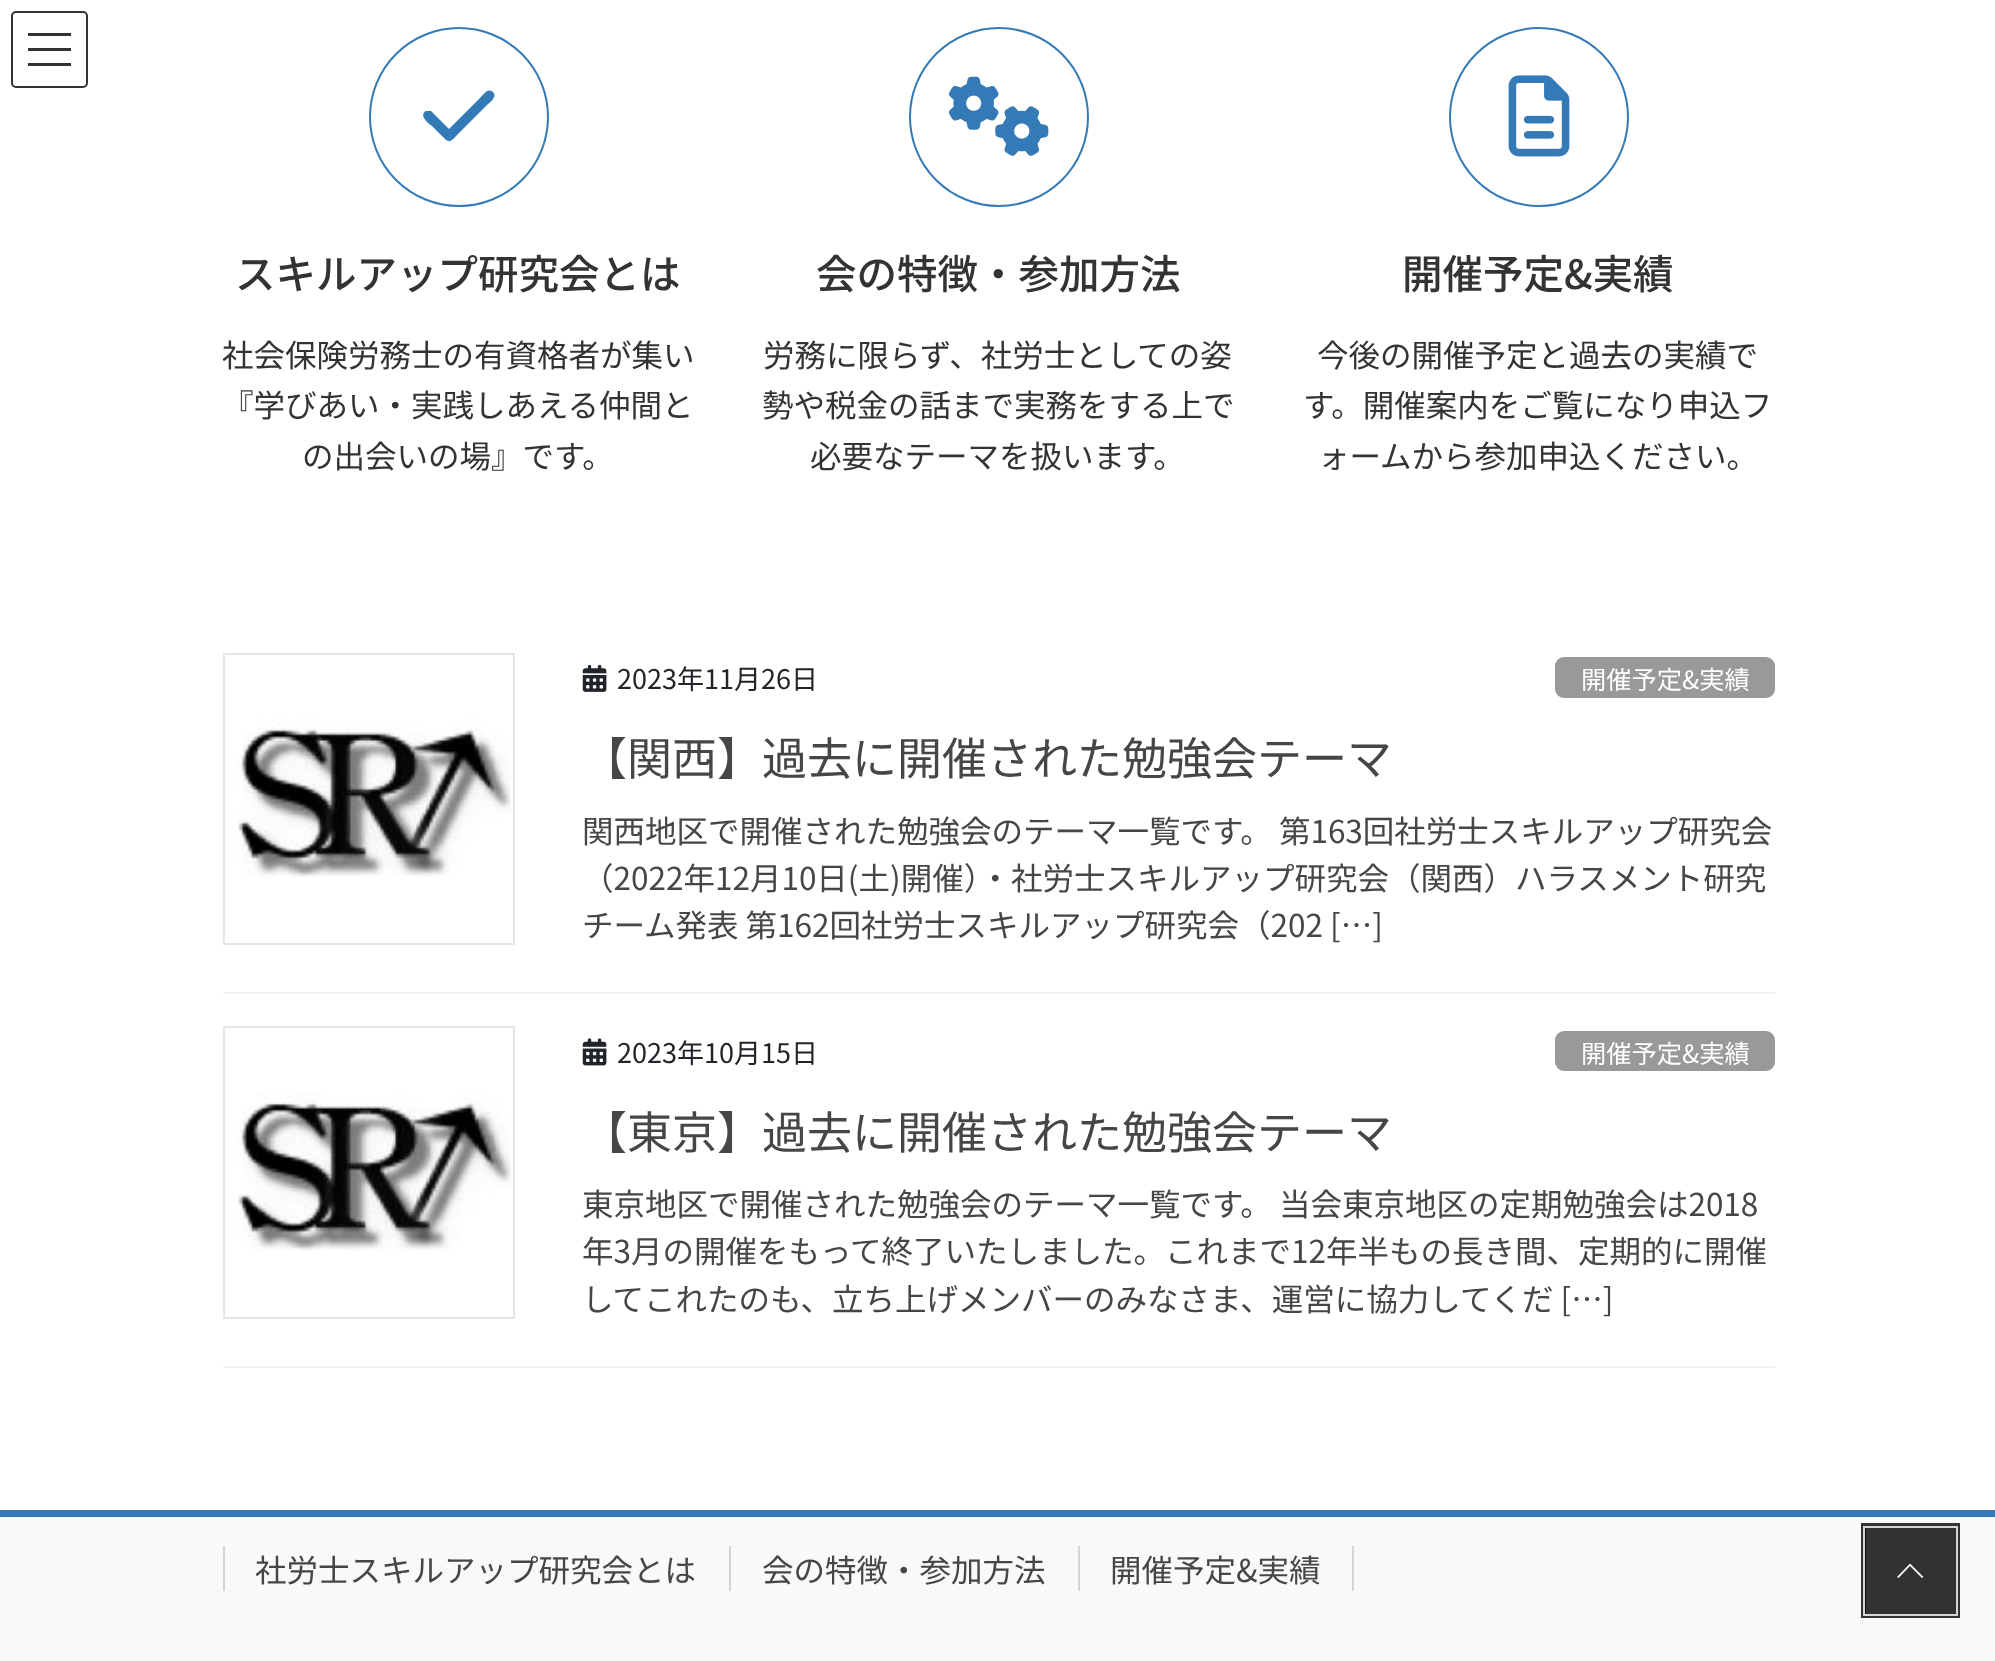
<svg xmlns="http://www.w3.org/2000/svg" width="1995" height="1661" viewBox="0 0 1995 1661">
  <rect width="100%" height="100%" fill="rgb(255,255,255)"/>
  <rect x="28" y="33" width="43" height="3" fill="rgb(51,51,51)"/>
  <rect x="28" y="48" width="43" height="3" fill="rgb(51,51,51)"/>
  <rect x="28" y="63" width="43" height="3" fill="rgb(51,51,51)"/>
  <rect x="12" y="12" width="75" height="75" rx="4" fill="none" stroke="rgb(51,51,51)" stroke-width="2"/>
  <circle cx="459" cy="117" r="89" fill="none" stroke="rgb(51,122,183)" stroke-width="2"/>
  <path d="M493 92C498 97 489 103 486 106L459 133C451 141 450 145 442 136L432 126C429 124 418 115 426 111C428 111 430 111 431 111L449 129L480 98C483 95 488 87 493 92Z" fill="rgb(51,122,183)"/>
  <text x="235" y="289" font-family="Noto Sans JP" font-size="40.5" font-weight="500" fill="rgb(51,51,51)">スキルアップ研究会とは</text>
  <g font-family="Noto Sans JP" font-size="31.5" fill="rgb(51,51,51)">
    <text>
      <tspan x="222" y="367">社会保険労務士の有資格者が集い</tspan>
      <tspan x="222" y="417">『学びあい・実践しあえる仲間と</tspan>
    </text>
    <text x="302" y="468">の出会いの場』です。</text>
  </g>
  <circle cx="999" cy="117" r="89" fill="none" stroke="rgb(51,122,183)" stroke-width="2"/>
  <image x="948" y="76" width="101" height="80" href="pic1.png"/>
  <text x="816" y="289" font-family="Noto Sans JP" font-size="40.5" font-weight="500" fill="rgb(51,51,51)">会の特徴・参加方法</text>
  <g font-family="Noto Sans JP" font-size="31.5" fill="rgb(51,51,51)">
    <text x="763" y="367">労務に限らず、社労士としての姿</text>
    <text x="762" y="417">勢や税金の話まで実務をする上で</text>
    <text x="810" y="468">必要なテーマを扱います。</text>
  </g>
  <circle cx="1539" cy="117" r="89" fill="none" stroke="rgb(51,122,183)" stroke-width="2"/>
  <image x="1508" y="75" width="62" height="82" href="pic2.png"/>
  <text x="1402" y="289" font-family="Noto Sans JP" font-size="40.5" font-weight="500" fill="rgb(51,51,51)">開催予定&amp;実績</text>
  <g font-family="Noto Sans JP" font-size="31.5" fill="rgb(51,51,51)">
    <text x="1317" y="367">今後の開催予定と過去の実績で</text>
    <text x="1303" y="417">す。開催案内をご覧になり申込フ</text>
    <text x="1318" y="468">ォームから参加申込ください。</text>
  </g>
  <rect x="223" y="992" width="1552" height="2" fill="rgb(242,242,242)"/>
  <rect x="224" y="654" width="290" height="290" fill="none" stroke="rgb(229,229,229)" stroke-width="2"/>
  <image x="238" y="718" width="273" height="159" href="pic3.png"/>
  <image x="582" y="664" width="25" height="28" href="pic4.png"/>
  <text x="617" y="689" font-family="Noto Sans JP" font-size="27" fill="rgb(33,37,41)">2023年11月26日</text>
  <rect x="1555" y="657" width="220" height="41" rx="9" fill="rgb(153,153,153)"/>
  <text x="1581" y="689" font-family="Noto Sans JP" font-size="25.25" fill="rgb(255,255,255)">開催予定&amp;実績</text>
  <text x="582" y="775" font-family="Noto Sans JP" font-size="45" fill="rgb(70,70,70)">【関西】過去に開催された勉強会テーマ</text>
  <g font-family="Noto Sans JP" font-size="31.5" fill="rgb(70,70,70)">
    <text>
      <tspan x="582" y="843">関西地区で開催された勉強会のテーマ一覧です。 第163回社労士スキルアップ研究会</tspan>
      <tspan x="582" y="890">（2022年12月10日(土)開催）・社労士スキルアップ研究会（関西）ハラスメント研究</tspan>
      <tspan x="582" y="937">チーム発表 第162回社労士スキルアップ研究会（202 […]</tspan>
    </text>
  </g>
  <rect x="223" y="1366" width="1552" height="2" fill="rgb(242,242,242)"/>
  <rect x="224" y="1027" width="290" height="291" fill="none" stroke="rgb(229,229,229)" stroke-width="2"/>
  <image x="238" y="1092" width="273" height="159" href="pic5.png"/>
  <image x="582" y="1038" width="25" height="28" href="pic6.png"/>
  <text x="617" y="1063" font-family="Noto Sans JP" font-size="27" fill="rgb(33,37,41)">2023年10月15日</text>
  <rect x="1555" y="1031" width="220" height="40" rx="9" fill="rgb(153,153,153)"/>
  <text x="1581" y="1063" font-family="Noto Sans JP" font-size="25.25" fill="rgb(255,255,255)">開催予定&amp;実績</text>
  <text x="582" y="1149" font-family="Noto Sans JP" font-size="45" fill="rgb(70,70,70)">【東京】過去に開催された勉強会テーマ</text>
  <g font-family="Noto Sans JP" font-size="31.5" fill="rgb(70,70,70)">
    <text>
      <tspan x="582" y="1216">東京地区で開催された勉強会のテーマ一覧です。 当会東京地区の定期勉強会は2018</tspan>
      <tspan x="582" y="1263">年3月の開催をもって終了いたしました。これまで12年半もの長き間、定期的に開催</tspan>
      <tspan x="582" y="1311">してこれたのも、立ち上げメンバーのみなさま、運営に協力してくだ […]</tspan>
    </text>
  </g>
  <rect x="0" y="1517" width="1995" height="144" fill="rgb(249,249,249)"/>
  <rect x="0" y="1510" width="1995" height="7" fill="rgb(51,122,183)"/>
  <text x="255" y="1582" font-family="Noto Sans JP" font-size="31.5" fill="rgb(70,70,70)">社労士スキルアップ研究会とは</text>
  <rect x="223" y="1546" width="2" height="45" fill="rgb(212,212,212)"/>
  <text x="762" y="1582" font-family="Noto Sans JP" font-size="31.5" fill="rgb(70,70,70)">会の特徴・参加方法</text>
  <rect x="729" y="1546" width="2" height="45" fill="rgb(212,212,212)"/>
  <text x="1110" y="1582" font-family="Noto Sans JP" font-size="31.5" fill="rgb(70,70,70)">開催予定&amp;実績</text>
  <rect x="1352" y="1546" width="2" height="45" fill="rgb(212,212,212)"/>
  <rect x="1078" y="1546" width="2" height="45" fill="rgb(212,212,212)"/>
  <rect x="1863.5" y="1525.5" width="94" height="90" fill="none" stroke="rgb(50,50,50)" stroke-width="5"/>
  <rect x="1864" y="1527" width="93" height="88" fill="none" stroke="rgb(214,214,214)" stroke-width="2"/>
  <rect x="1865" y="1528" width="90" height="85" fill="rgba(0,0,0,0.8)"/>
  <path d="M1923.5 1577L1922 1578L1910 1566L1898.5 1578L1897 1577L1910 1563.5Z" fill="rgb(255,255,255)"/>
</svg>
